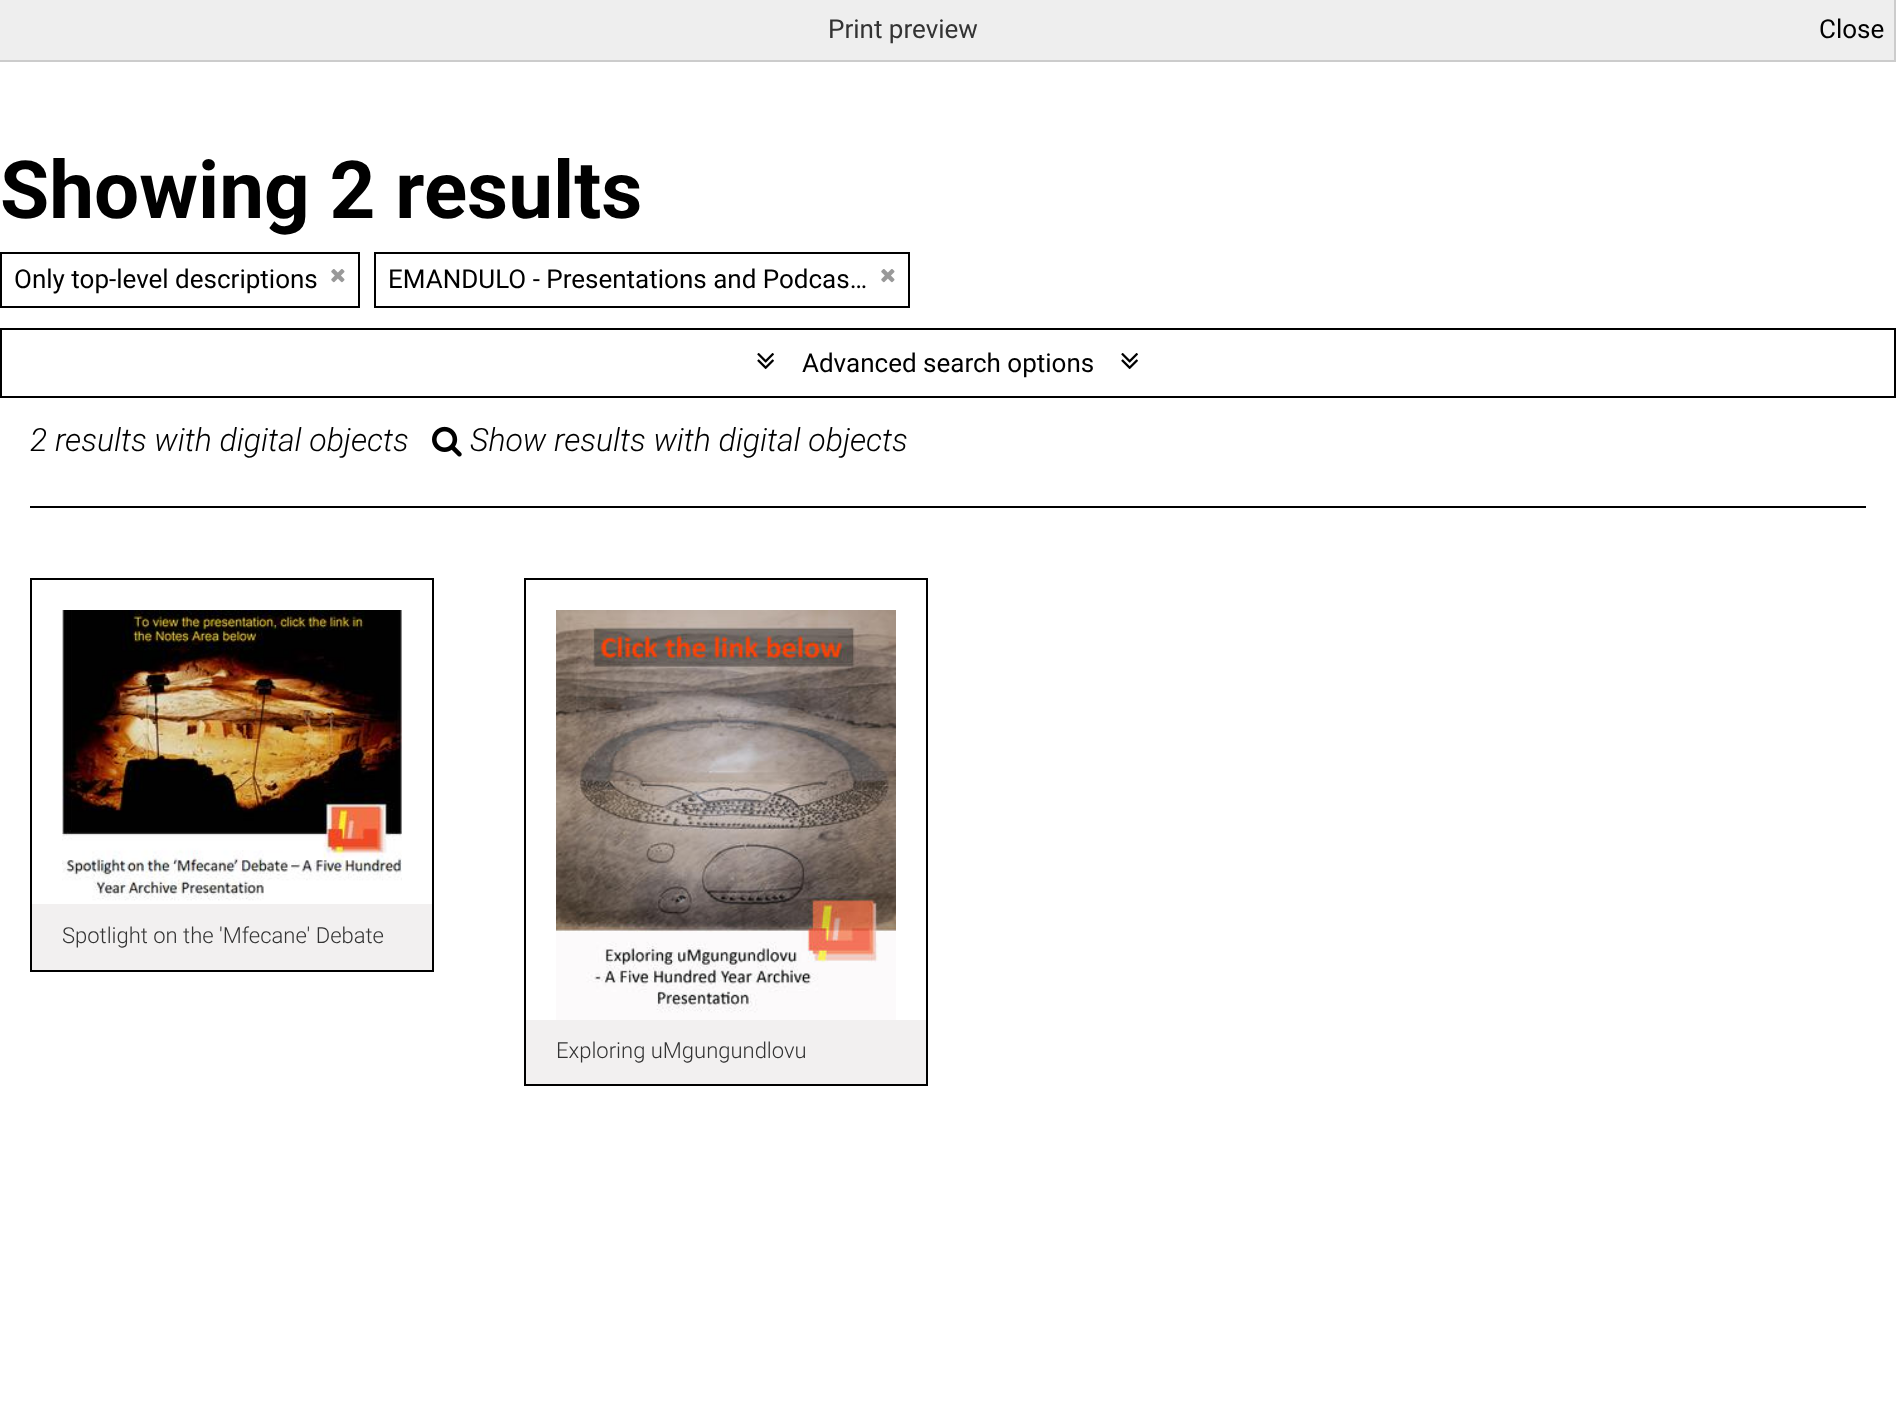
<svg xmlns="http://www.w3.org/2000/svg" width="1896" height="1418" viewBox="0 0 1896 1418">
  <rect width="100%" height="100%" fill="rgb(255,255,255)"/>
  <rect x="0" y="0" width="1894" height="60" fill="rgb(238,238,238)"/>
  <rect x="1894" y="0" width="2" height="62" fill="rgb(204,204,204)"/>
  <rect x="0" y="60" width="1896" height="2" fill="rgb(204,204,204)"/>
  <text x="828" y="38" font-family="Roboto" font-size="26" fill="rgb(51,51,51)">Print preview</text>
  <text x="1819" y="38" font-family="Roboto" font-size="26" fill="rgb(0,0,0)">Close</text>
  <text x="0" y="218" font-family="Roboto" font-size="80" font-weight="bold" fill="rgb(0,0,0)">Showing 2 results</text>
  <rect x="1" y="253" width="358" height="54" fill="none" stroke="rgb(0,0,0)" stroke-width="2"/>
  <text x="14" y="288" font-family="Roboto" font-size="26" fill="rgb(0,0,0)">Only top-level descriptions</text>
  <image x="331" y="269" width="14" height="14" href="pic1.png"/>
  <rect x="375" y="253" width="534" height="54" fill="none" stroke="rgb(0,0,0)" stroke-width="2"/>
  <text x="388" y="288" font-family="Roboto" font-size="26" fill="rgb(0,0,0)">EMANDULO - Presentations and Podcas…</text>
  <image x="881" y="269" width="14" height="14" href="pic1.png"/>
  <rect x="1" y="329" width="1894" height="68" fill="none" stroke="rgb(0,0,0)" stroke-width="2"/>
  <image x="757" y="353" width="17" height="17" href="pic2.png"/>
  <text x="802" y="372" font-family="Roboto" font-size="26" fill="rgb(0,0,0)">Advanced search options</text>
  <image x="1121" y="353" width="17" height="17" href="pic2.png"/>
  <rect x="30" y="506" width="1836" height="2" fill="rgb(0,0,0)"/>
  <text x="30" y="451" font-family="Roboto" font-size="32" font-weight="300" font-style="italic" fill="rgb(0,0,0)">2 results with digital objects</text>
  <image x="432" y="426" width="30" height="31" href="pic3.png"/>
  <text x="470" y="451" font-family="Roboto" font-size="32" font-weight="300" font-style="italic" fill="rgb(0,0,0)">Show results with digital objects</text>
  <rect x="31" y="579" width="402" height="392" fill="none" stroke="rgb(0,0,0)" stroke-width="2"/>
  <image x="62" y="610" width="340" height="291" href="pic4.png"/>
  <rect x="32" y="904" width="400" height="66" fill="rgb(242,240,240)"/>
  <text x="62" y="943" font-family="Roboto" font-size="22" font-weight="300" fill="rgb(51,51,51)">Spotlight on the 'Mfecane' Debate</text>
  <rect x="525" y="579" width="402" height="506" fill="none" stroke="rgb(0,0,0)" stroke-width="2"/>
  <image x="556" y="610" width="340" height="410" href="pic5.png"/>
  <rect x="526" y="1020" width="400" height="64" fill="rgb(242,240,240)"/>
  <text x="556" y="1058" font-family="Roboto" font-size="22" font-weight="300" fill="rgb(51,51,51)">Exploring uMgungundlovu</text>
</svg>
